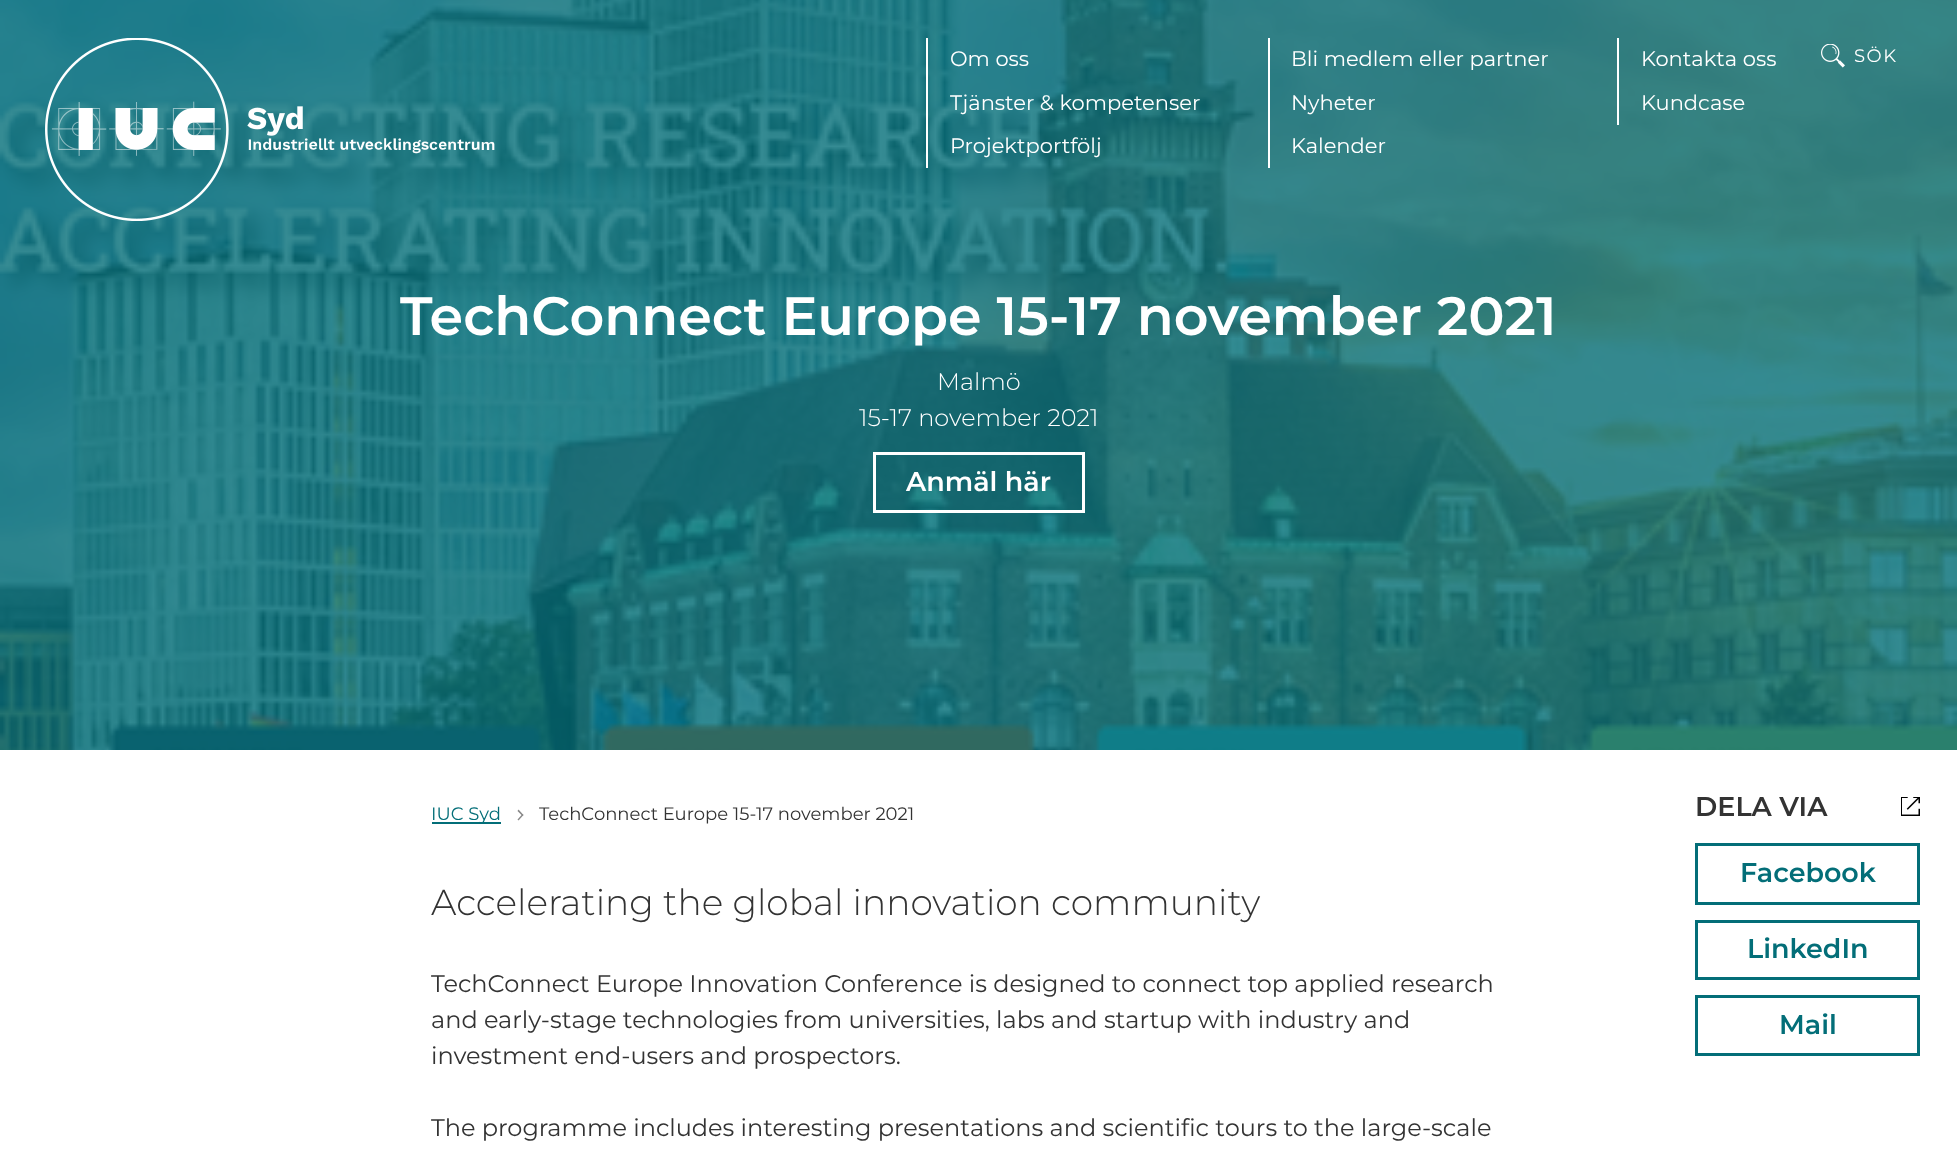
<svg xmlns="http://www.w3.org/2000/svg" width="1957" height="1166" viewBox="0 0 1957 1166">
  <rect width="100%" height="100%" fill="rgb(255,255,255)"/>
  <image x="0" y="0" width="1957" height="750" href="pic3.png"/>
  <image x="45" y="38" width="450" height="183" href="pic1.png"/>
  <rect x="926" y="38" width="2" height="130" fill="rgb(255,255,255)"/>
  <g font-family="'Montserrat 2'" font-size="21" font-weight="100" fill="rgb(255,255,255)">
    <text x="950" y="66">Om oss</text>
    <text x="950" y="110">Tjänster &amp; kompetenser</text>
    <text x="950" y="153">Projektportfölj</text>
  </g>
  <rect x="1268" y="38" width="2" height="130" fill="rgb(255,255,255)"/>
  <g font-family="'Montserrat 2'" font-size="21" font-weight="100" fill="rgb(255,255,255)">
    <text x="1291" y="66">Bli medlem eller partner</text>
    <text x="1291" y="110">Nyheter</text>
    <text x="1291" y="153">Kalender</text>
  </g>
  <rect x="1617" y="38" width="2" height="87" fill="rgb(255,255,255)"/>
  <g font-family="'Montserrat 2'" font-size="21" font-weight="100" fill="rgb(255,255,255)">
    <text x="1641" y="66">Kontakta oss</text>
    <text x="1641" y="110">Kundcase</text>
  </g>
  <image x="1821" y="44" width="24" height="24" href="pic2.png"/>
  <text x="1854" y="62" font-family="'Montserrat 2'" font-size="18" font-weight="100" letter-spacing="1.5" fill="rgb(255,255,255)">SÖK</text>
  <text x="400" y="335" font-family="'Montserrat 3'" font-size="54" font-weight="100" fill="rgb(255,255,255)">TechConnect Europe 15-17 november 2021</text>
  <g font-family="Montserrat" font-size="24" font-weight="100" fill="rgb(255,255,255)">
    <text x="937" y="390">Malmö</text>
    <text x="859" y="426">15-17 november 2021</text>
  </g>
  <rect x="874.5" y="453.5" width="209" height="58" fill="none" stroke="rgb(255,255,255)" stroke-width="3"/>
  <text x="906" y="491" font-family="'Montserrat 3'" font-size="27" font-weight="100" fill="rgb(255,255,255)">Anmäl här</text>
  <rect x="432" y="822" width="69" height="2" fill="rgb(3,110,120)"/>
  <text x="431" y="820" font-family="'Montserrat 2'" font-size="18" font-weight="100" fill="rgb(3,110,120)">IUC Syd</text>
  <path d="M518.5 809.5L523.5 815L522.5 816L517.5 811Z" fill="rgb(136,136,136)"/>
  <path d="M522.5 814L523.5 815L518.5 820.5L517.5 819.5Z" fill="rgb(136,136,136)"/>
  <text x="539" y="820" font-family="'Montserrat 2'" font-size="18" font-weight="100" fill="rgb(51,51,51)">TechConnect Europe 15-17 november 2021</text>
  <text x="431" y="915" font-family="Montserrat" font-size="36" font-weight="100" fill="rgb(51,51,51)">Accelerating the global innovation community</text>
  <g font-family="'Montserrat 2'" font-size="24" font-weight="100" fill="rgb(51,51,51)">
    <text>
      <tspan x="431" y="992">TechConnect Europe Innovation Conference is designed to connect top applied research</tspan>
      <tspan x="431" y="1028">and early-stage technologies from universities, labs and startup with industry and</tspan>
      <tspan x="431" y="1064">investment end-users and prospectors.</tspan>
    </text>
    <text x="431" y="1136">The programme includes interesting presentations and scientific tours to the large-scale</text>
  </g>
  <text x="1695" y="816" font-family="'Montserrat 3'" font-size="27" font-weight="100" fill="rgb(51,51,51)">DELA VIA</text>
  <image x="1901" y="797" width="19" height="19" href="pic4.png"/>
  <rect x="1696.5" y="844.5" width="222" height="59" fill="none" stroke="rgb(3,110,120)" stroke-width="3"/>
  <text x="1740" y="882" font-family="'Montserrat 3'" font-size="27" font-weight="100" fill="rgb(3,110,120)">Facebook</text>
  <rect x="1696.5" y="921.5" width="222" height="57" fill="none" stroke="rgb(3,110,120)" stroke-width="3"/>
  <text x="1747" y="958" font-family="'Montserrat 3'" font-size="27" font-weight="100" fill="rgb(3,110,120)">LinkedIn</text>
  <rect x="1696.5" y="996.5" width="222" height="58" fill="none" stroke="rgb(3,110,120)" stroke-width="3"/>
  <text x="1779" y="1034" font-family="'Montserrat 3'" font-size="27" font-weight="100" fill="rgb(3,110,120)">Mail</text>
</svg>
